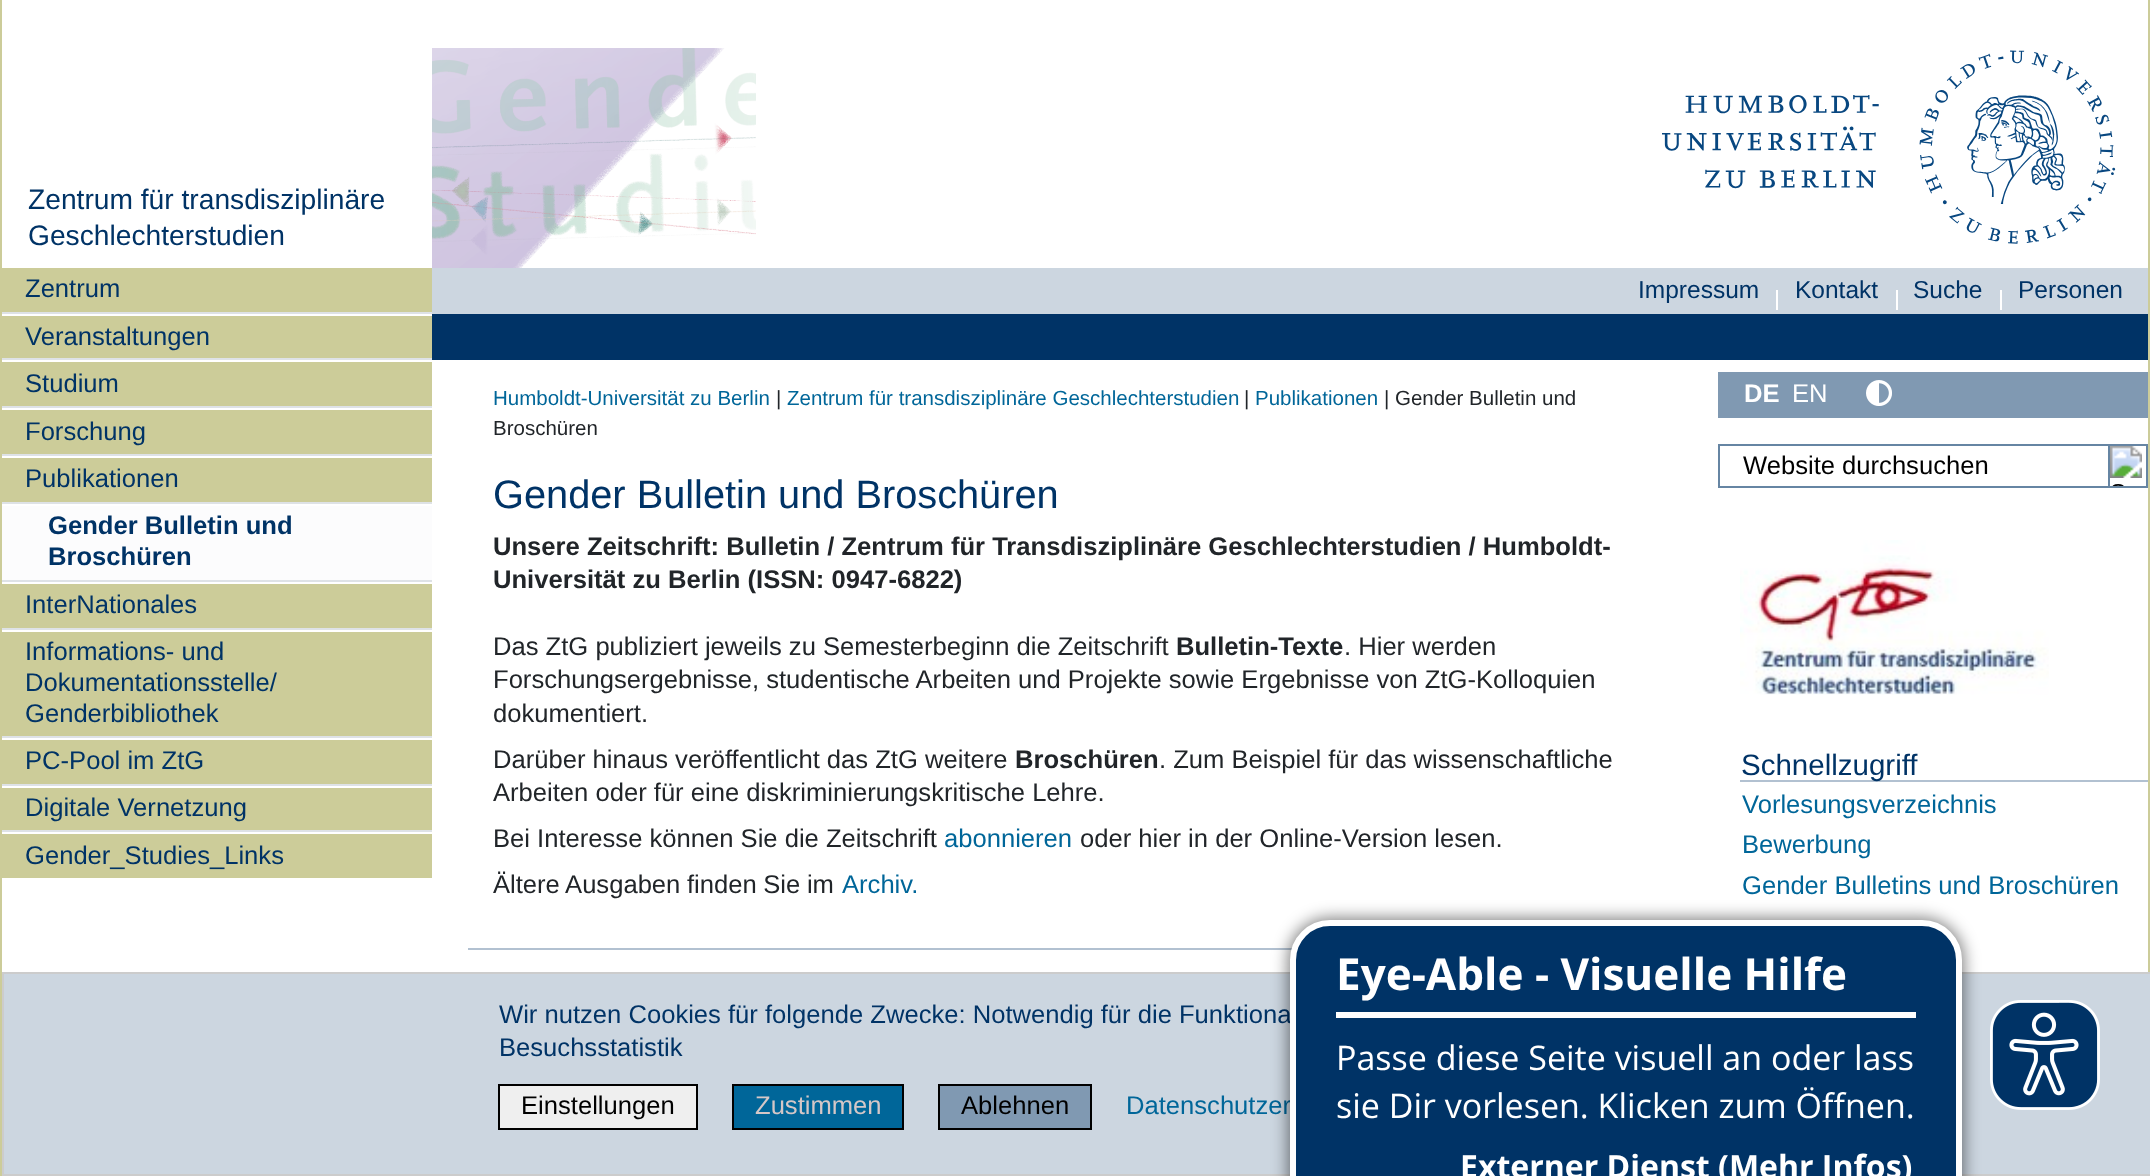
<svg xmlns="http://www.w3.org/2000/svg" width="2150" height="1176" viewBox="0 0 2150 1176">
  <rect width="100%" height="100%" fill="rgb(255,255,255)"/>
  <image x="432" y="48" width="324" height="220" href="pic1.png"/>
  <image x="1662" y="50" width="454" height="194" href="pic2.png"/>
  <rect x="2148" y="0" width="2" height="972" fill="rgb(204,204,153)"/>
  <rect x="0" y="0" width="2" height="1176" fill="rgb(204,204,153)"/>
  <g font-family="Liberation Sans" font-size="28.2" fill="rgb(0,51,102)">
    <text>
      <tspan x="28" y="209">Zentrum für transdisziplinäre</tspan>
      <tspan x="28" y="245">Geschlechterstudien</tspan>
    </text>
  </g>
  <rect x="2" y="268" width="430" height="44" fill="rgb(204,204,153)"/>
  <text x="25" y="297" font-family="Liberation Sans" font-size="25.6" fill="rgb(0,51,102)">Zentrum</text>
  <rect x="2" y="316" width="430" height="42" fill="rgb(204,204,153)"/>
  <rect x="2" y="312" width="430" height="2" fill="rgb(222,226,230)"/>
  <text x="25" y="345" font-family="Liberation Sans" font-size="25.6" fill="rgb(0,51,102)">Veranstaltungen</text>
  <rect x="2" y="362" width="430" height="44" fill="rgb(204,204,153)"/>
  <rect x="2" y="358" width="430" height="2" fill="rgb(222,226,230)"/>
  <text x="25" y="392" font-family="Liberation Sans" font-size="25.6" fill="rgb(0,51,102)">Studium</text>
  <rect x="2" y="410" width="430" height="44" fill="rgb(204,204,153)"/>
  <rect x="2" y="406" width="430" height="2" fill="rgb(222,226,230)"/>
  <text x="25" y="440" font-family="Liberation Sans" font-size="25.6" fill="rgb(0,51,102)">Forschung</text>
  <rect x="2" y="458" width="430" height="44" fill="rgb(204,204,153)"/>
  <rect x="2" y="454" width="430" height="2" fill="rgb(222,226,230)"/>
  <text x="25" y="487" font-family="Liberation Sans" font-size="25.6" fill="rgb(0,51,102)">Publikationen</text>
  <rect x="2" y="502" width="430" height="2" fill="rgb(222,226,230)"/>
  <rect x="2" y="506" width="430" height="74" fill="rgb(252,252,253)"/>
  <g font-family="Liberation Sans" font-size="25.6" font-weight="bold" fill="rgb(0,51,102)">
    <text>
      <tspan x="48" y="534">Gender Bulletin und</tspan>
      <tspan x="48" y="565">Broschüren</tspan>
    </text>
  </g>
  <rect x="2" y="584" width="430" height="44" fill="rgb(204,204,153)"/>
  <rect x="2" y="580" width="430" height="2" fill="rgb(222,226,230)"/>
  <text x="25" y="613" font-family="Liberation Sans" font-size="25.6" fill="rgb(0,51,102)">InterNationales</text>
  <rect x="2" y="632" width="430" height="104" fill="rgb(204,204,153)"/>
  <rect x="2" y="628" width="430" height="2" fill="rgb(222,226,230)"/>
  <g font-family="Liberation Sans" font-size="25.6" fill="rgb(0,51,102)">
    <text>
      <tspan x="25" y="660">Informations- und</tspan>
      <tspan x="25" y="691">Dokumentationsstelle/</tspan>
      <tspan x="25" y="722">Genderbibliothek</tspan>
    </text>
  </g>
  <rect x="2" y="740" width="430" height="44" fill="rgb(204,204,153)"/>
  <rect x="2" y="736" width="430" height="2" fill="rgb(222,226,230)"/>
  <text x="25" y="769" font-family="Liberation Sans" font-size="25.6" fill="rgb(0,51,102)">PC-Pool im ZtG</text>
  <rect x="2" y="788" width="430" height="42" fill="rgb(204,204,153)"/>
  <rect x="2" y="784" width="430" height="2" fill="rgb(222,226,230)"/>
  <text x="25" y="816" font-family="Liberation Sans" font-size="25.6" fill="rgb(0,51,102)">Digitale Vernetzung</text>
  <rect x="2" y="834" width="430" height="44" fill="rgb(204,204,153)"/>
  <rect x="2" y="830" width="430" height="2" fill="rgb(222,226,230)"/>
  <text x="25" y="864" font-family="Liberation Sans" font-size="25.6" fill="rgb(0,51,102)">Gender_Studies_Links</text>
  <rect x="432" y="268" width="1716" height="46" fill="rgb(204,214,224)"/>
  <text x="1638" y="298" font-family="Liberation Sans" font-size="24.5" fill="rgb(0,51,102)">Impressum</text>
  <rect x="1776" y="290" width="2" height="20" fill="rgb(255,255,255)"/>
  <text x="1795" y="298" font-family="Liberation Sans" font-size="24.5" fill="rgb(0,51,102)">Kontakt</text>
  <rect x="1896" y="290" width="2" height="20" fill="rgb(255,255,255)"/>
  <text x="1913" y="298" font-family="Liberation Sans" font-size="24.5" fill="rgb(0,51,102)">Suche</text>
  <rect x="2000" y="290" width="2" height="20" fill="rgb(255,255,255)"/>
  <text x="2018" y="298" font-family="Liberation Sans" font-size="24.5" fill="rgb(0,51,102)">Personen</text>
  <rect x="432" y="314" width="1716" height="46" fill="rgb(0,51,102)"/>
  <text x="493" y="405" font-family="Liberation Sans" font-size="20.5" fill="rgb(0,102,153)">Humboldt-Universität zu Berlin</text>
  <text x="776" y="405" font-family="Liberation Sans" font-size="20.5" fill="rgb(33,37,41)">|</text>
  <text x="787" y="405" font-family="Liberation Sans" font-size="20.5" fill="rgb(0,102,153)">Zentrum für transdisziplinäre Geschlechterstudien</text>
  <text x="1244" y="405" font-family="Liberation Sans" font-size="20.5" fill="rgb(33,37,41)">|</text>
  <text x="1255" y="405" font-family="Liberation Sans" font-size="20.5" fill="rgb(0,102,153)">Publikationen</text>
  <g font-family="Liberation Sans" font-size="20.5" fill="rgb(33,37,41)">
    <text x="1384" y="405">| Gender Bulletin und</text>
    <text x="493" y="435">Broschüren</text>
  </g>
  <text x="493" y="508" font-family="Liberation Sans" font-size="39.75" fill="rgb(0,51,102)">Gender Bulletin und Broschüren</text>
  <g font-family="Liberation Sans" font-size="25.6" font-weight="bold" fill="rgb(33,37,41)">
    <text>
      <tspan x="493" y="555">Unsere Zeitschrift: Bulletin / Zentrum für Transdisziplinäre Geschlechterstudien / Humboldt-</tspan>
      <tspan x="493" y="588">Universität zu Berlin (ISSN: 0947-6822)</tspan>
    </text>
  </g>
  <text x="493" y="655" font-family="Liberation Sans" font-size="25.6" fill="rgb(33,37,41)">Das ZtG publiziert jeweils zu Semesterbeginn die Zeitschrift</text>
  <text x="1176" y="655" font-family="Liberation Sans" font-size="25.6" font-weight="bold" fill="rgb(33,37,41)">Bulletin-Texte</text>
  <g font-family="Liberation Sans" font-size="25.6" fill="rgb(33,37,41)">
    <text x="1344" y="655">. Hier werden</text>
    <text>
      <tspan x="493" y="688">Forschungsergebnisse, studentische Arbeiten und Projekte sowie Ergebnisse von ZtG-Kolloquien</tspan>
      <tspan x="493" y="722">dokumentiert.</tspan>
      <tspan x="493" y="768">Darüber hinaus veröffentlicht das ZtG weitere</tspan>
    </text>
  </g>
  <text x="1015" y="768" font-family="Liberation Sans" font-size="25.6" font-weight="bold" fill="rgb(33,37,41)">Broschüren</text>
  <g font-family="Liberation Sans" font-size="25.6" fill="rgb(33,37,41)">
    <text x="1159" y="768">. Zum Beispiel für das wissenschaftliche</text>
    <text>
      <tspan x="493" y="801">Arbeiten oder für eine diskriminierungskritische Lehre.</tspan>
      <tspan x="493" y="847">Bei Interesse können Sie die Zeitschrift</tspan>
    </text>
  </g>
  <text x="944" y="847" font-family="Liberation Sans" font-size="25.6" fill="rgb(0,102,153)">abonnieren</text>
  <g font-family="Liberation Sans" font-size="25.6" fill="rgb(33,37,41)">
    <text x="1080" y="847">oder hier in der Online-Version lesen.</text>
    <text x="493" y="893" word-spacing="-0.5">Ältere Ausgaben finden Sie im</text>
  </g>
  <text x="842" y="893" font-family="Liberation Sans" font-size="25.6" fill="rgb(0,102,153)">Archiv.</text>
  <rect x="468" y="948" width="824" height="2" fill="rgb(178,193,209)"/>
  <rect x="1718" y="372" width="430" height="46" fill="rgb(128,153,178)"/>
  <text x="1744" y="402" font-family="Liberation Sans" font-size="25.6" font-weight="bold" fill="rgb(255,255,255)">DE</text>
  <text x="1792" y="402" font-family="Liberation Sans" font-size="25.6" fill="rgb(255,255,255)">EN</text>
  <image x="1866" y="380" width="26" height="26" href="pic3.png"/>
  <rect x="1719" y="445" width="428" height="42" fill="none" stroke="rgb(102,133,163)" stroke-width="2"/>
  <text x="1743" y="474" font-family="Liberation Sans" font-size="25.6" fill="rgb(0,0,0)">Website durchsuchen</text>
  <rect x="2109" y="445" width="38" height="42" fill="none" stroke="rgb(102,133,163)" stroke-width="2"/>
  <image x="2110" y="446" width="32" height="40" href="pic4.png"/>
  <image x="1740" y="540" width="309" height="155" href="pic5.png"/>
  <rect x="1740" y="780" width="408" height="2" fill="rgb(178,193,209)"/>
  <text x="1741" y="775" font-family="Liberation Sans" font-size="29.5" fill="rgb(0,51,102)">Schnellzugriff</text>
  <g font-family="Liberation Sans" font-size="25.6" fill="rgb(0,102,153)">
    <text>
      <tspan x="1742" y="813">Vorlesungsverzeichnis</tspan>
      <tspan x="1742" y="853">Bewerbung</tspan>
      <tspan x="1742" y="894">Gender Bulletins und Broschüren</tspan>
    </text>
  </g>
  <image x="1962" y="966" width="159" height="6" href="pic6.png"/>
  <rect x="3" y="973" width="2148" height="202" fill="rgb(204,214,224)" stroke="rgb(204,204,204)" stroke-width="2"/>
  <g font-family="Liberation Sans" font-size="25.6" fill="rgb(0,51,102)">
    <text>
      <tspan x="499" y="1023">Wir nutzen Cookies für folgende Zwecke: Notwendig für die Funktiona</tspan>
      <tspan x="499" y="1056">Besuchsstatistik</tspan>
    </text>
  </g>
  <rect x="499" y="1085" width="198" height="44" fill="rgb(239,239,239)" stroke="rgb(0,0,0)" stroke-width="2"/>
  <text x="521" y="1114" font-family="Liberation Sans" font-size="25.6" fill="rgb(0,0,0)">Einstellungen</text>
  <rect x="733" y="1085" width="170" height="44" fill="rgb(0,102,153)" stroke="rgb(0,0,0)" stroke-width="2"/>
  <text x="755" y="1114" font-family="Liberation Sans" font-size="25.6" fill="rgb(213,199,199)">Zustimmen</text>
  <rect x="939" y="1085" width="152" height="44" fill="rgb(128,153,178)" stroke="rgb(0,0,0)" stroke-width="2"/>
  <text x="961" y="1114" font-family="Liberation Sans" font-size="25.6" fill="rgb(0,0,0)">Ablehnen</text>
  <text x="1126" y="1114" font-family="Liberation Sans" font-size="25.6" fill="rgb(0,102,153)">Datenschutzer</text>
  <rect x="1288" y="918" width="676" height="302" rx="42" fill="rgba(0,0,0,0.5)" filter="blur(8px)"/>
  <rect x="1293" y="923" width="666" height="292" rx="37" fill="rgb(0,51,102)" stroke="rgb(255,255,255)" stroke-width="6"/>
  <rect x="1336" y="1012" width="580" height="6" fill="rgb(255,255,255)"/>
  <text x="1336" y="990" font-family="Open Sans" font-size="44" font-weight="bold" fill="rgb(255,255,255)">Eye-Able - Visuelle Hilfe</text>
  <g font-family="Open Sans" font-size="34" fill="rgb(255,255,255)">
    <text>
      <tspan x="1336" y="1070">Passe diese Seite visuell an oder lass</tspan>
      <tspan x="1336" y="1118">sie Dir vorlesen. Klicken zum Öffnen.</tspan>
    </text>
  </g>
  <text x="1460" y="1178" font-family="Open Sans" font-size="32" font-weight="bold" fill="rgb(255,255,255)">Externer Dienst (Mehr Infos)</text>
  <image x="1990" y="1000" width="110" height="110" href="pic7.png"/>
</svg>
